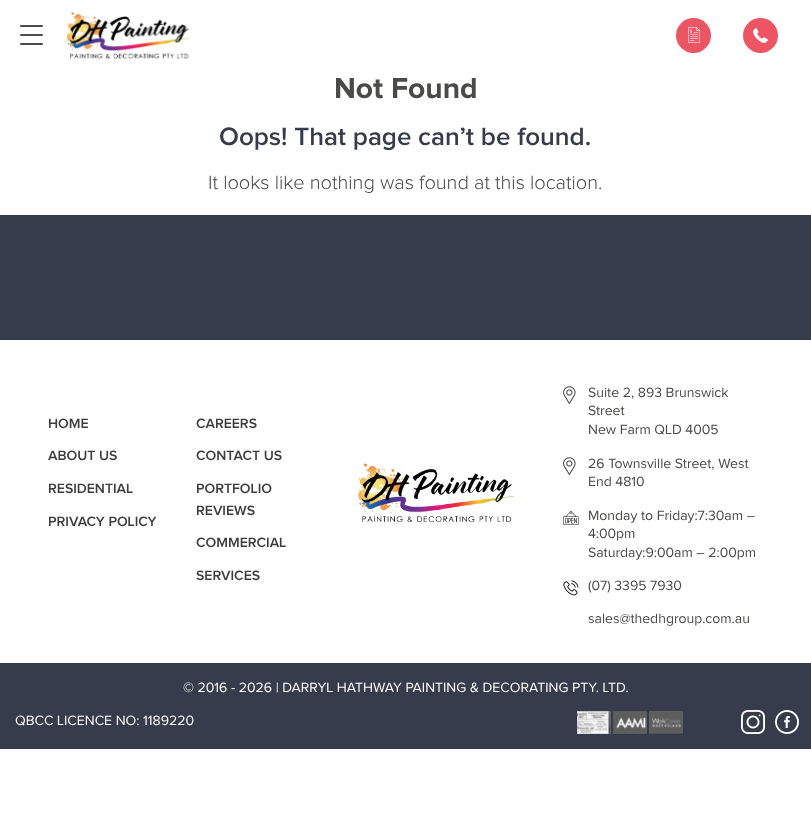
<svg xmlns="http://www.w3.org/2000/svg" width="811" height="818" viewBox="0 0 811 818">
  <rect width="100%" height="100%" fill="rgb(255,255,255)"/>
  <rect x="20" y="25" width="23" height="2" rx="1" fill="rgb(76,76,76)"/>
  <rect x="20" y="34" width="23" height="2" rx="1" fill="rgb(76,76,76)"/>
  <rect x="20" y="43" width="23" height="2" rx="1" fill="rgb(76,76,76)"/>
  <image x="66" y="12" width="125" height="47" href="pic1.png"/>
  <circle cx="693.5" cy="35.5" r="17.5" fill="rgb(237,85,100)"/>
  <image x="688" y="27" width="12" height="16" href="pic2.png"/>
  <circle cx="760.5" cy="35.5" r="17.5" fill="rgb(237,85,100)"/>
  <image x="753" y="28" width="15" height="15" href="pic3.png"/>
  <text x="334" y="98" font-family="Proxima Nova" font-size="30" font-weight="bold" fill="rgb(74,74,73)">Not Found</text>
  <text x="219" y="145" font-family="Proxima Nova" font-size="26" font-weight="600" fill="rgb(54,60,76)">Oops! That page can’t be found.</text>
  <text x="208" y="189" font-family="Proxima Nova" font-size="20" font-weight="300" fill="rgb(74,74,73)">It looks like nothing was found at this location.</text>
  <rect x="0" y="215" width="811" height="125" fill="rgb(54,60,76)"/>
  <g font-family="Proxima Nova" font-size="14" font-weight="600" fill="rgb(61,61,61)">
    <text x="48" y="428">HOME</text>
    <text x="48" y="460">ABOUT US</text>
    <text x="48" y="493">RESIDENTIAL</text>
    <text x="48" y="526">PRIVACY POLICY</text>
    <text x="196" y="428">CAREERS</text>
    <text x="196" y="460">CONTACT US</text>
    <text>
      <tspan x="196" y="493">PORTFOLIO</tspan>
      <tspan x="196" y="515">REVIEWS</tspan>
    </text>
    <text x="196" y="547">COMMERCIAL</text>
    <text x="196" y="580">SERVICES</text>
  </g>
  <image x="357" y="463" width="158" height="59" href="pic4.png"/>
  <image x="563" y="386" width="13" height="18" href="pic5.png"/>
  <g font-family="Proxima Nova" font-size="14" fill="rgb(74,74,73)">
    <text>
      <tspan x="588" y="397">Suite 2, 893 Brunswick</tspan>
      <tspan x="588" y="415">Street</tspan>
      <tspan x="588" y="434">New Farm QLD 4005</tspan>
    </text>
  </g>
  <image x="563" y="457" width="13" height="18" href="pic5.png"/>
  <g font-family="Proxima Nova" font-size="14" fill="rgb(74,74,73)">
    <text>
      <tspan x="588" y="468">26 Townsville Street, West</tspan>
      <tspan x="588" y="486">End 4810</tspan>
    </text>
  </g>
  <image x="563" y="511" width="16" height="14" href="pic6.png"/>
  <g font-family="Proxima Nova" font-size="14" fill="rgb(74,74,73)">
    <text>
      <tspan x="588" y="520">Monday to Friday:7:30am –</tspan>
      <tspan x="588" y="538">4:00pm</tspan>
      <tspan x="588" y="557">Saturday:9:00am – 2:00pm</tspan>
    </text>
  </g>
  <image x="563" y="580" width="16" height="16" href="pic7.png"/>
  <g font-family="Proxima Nova" font-size="14" fill="rgb(74,74,73)">
    <text x="588" y="590">(07) 3395 7930</text>
    <text x="588" y="623">sales@thedhgroup.com.au</text>
  </g>
  <rect x="0" y="663" width="811" height="86" fill="rgb(54,60,76)"/>
  <g font-family="Proxima Nova" font-size="14" fill="rgb(255,255,255)">
    <text x="183" y="692">© 2016 - 2026 | DARRYL HATHWAY PAINTING &amp; DECORATING PTY. LTD.</text>
    <text x="15" y="725">QBCC LICENCE NO: 1189220</text>
  </g>
  <image x="577" y="711" width="34" height="23" href="pic8.png"/>
  <image x="613" y="711" width="34" height="23" href="pic9.png"/>
  <image x="649" y="711" width="34" height="23" href="pic10.png"/>
  <image x="741" y="710" width="24" height="24" href="pic11.png"/>
  <image x="775" y="710" width="24" height="24" href="pic12.png"/>
</svg>
